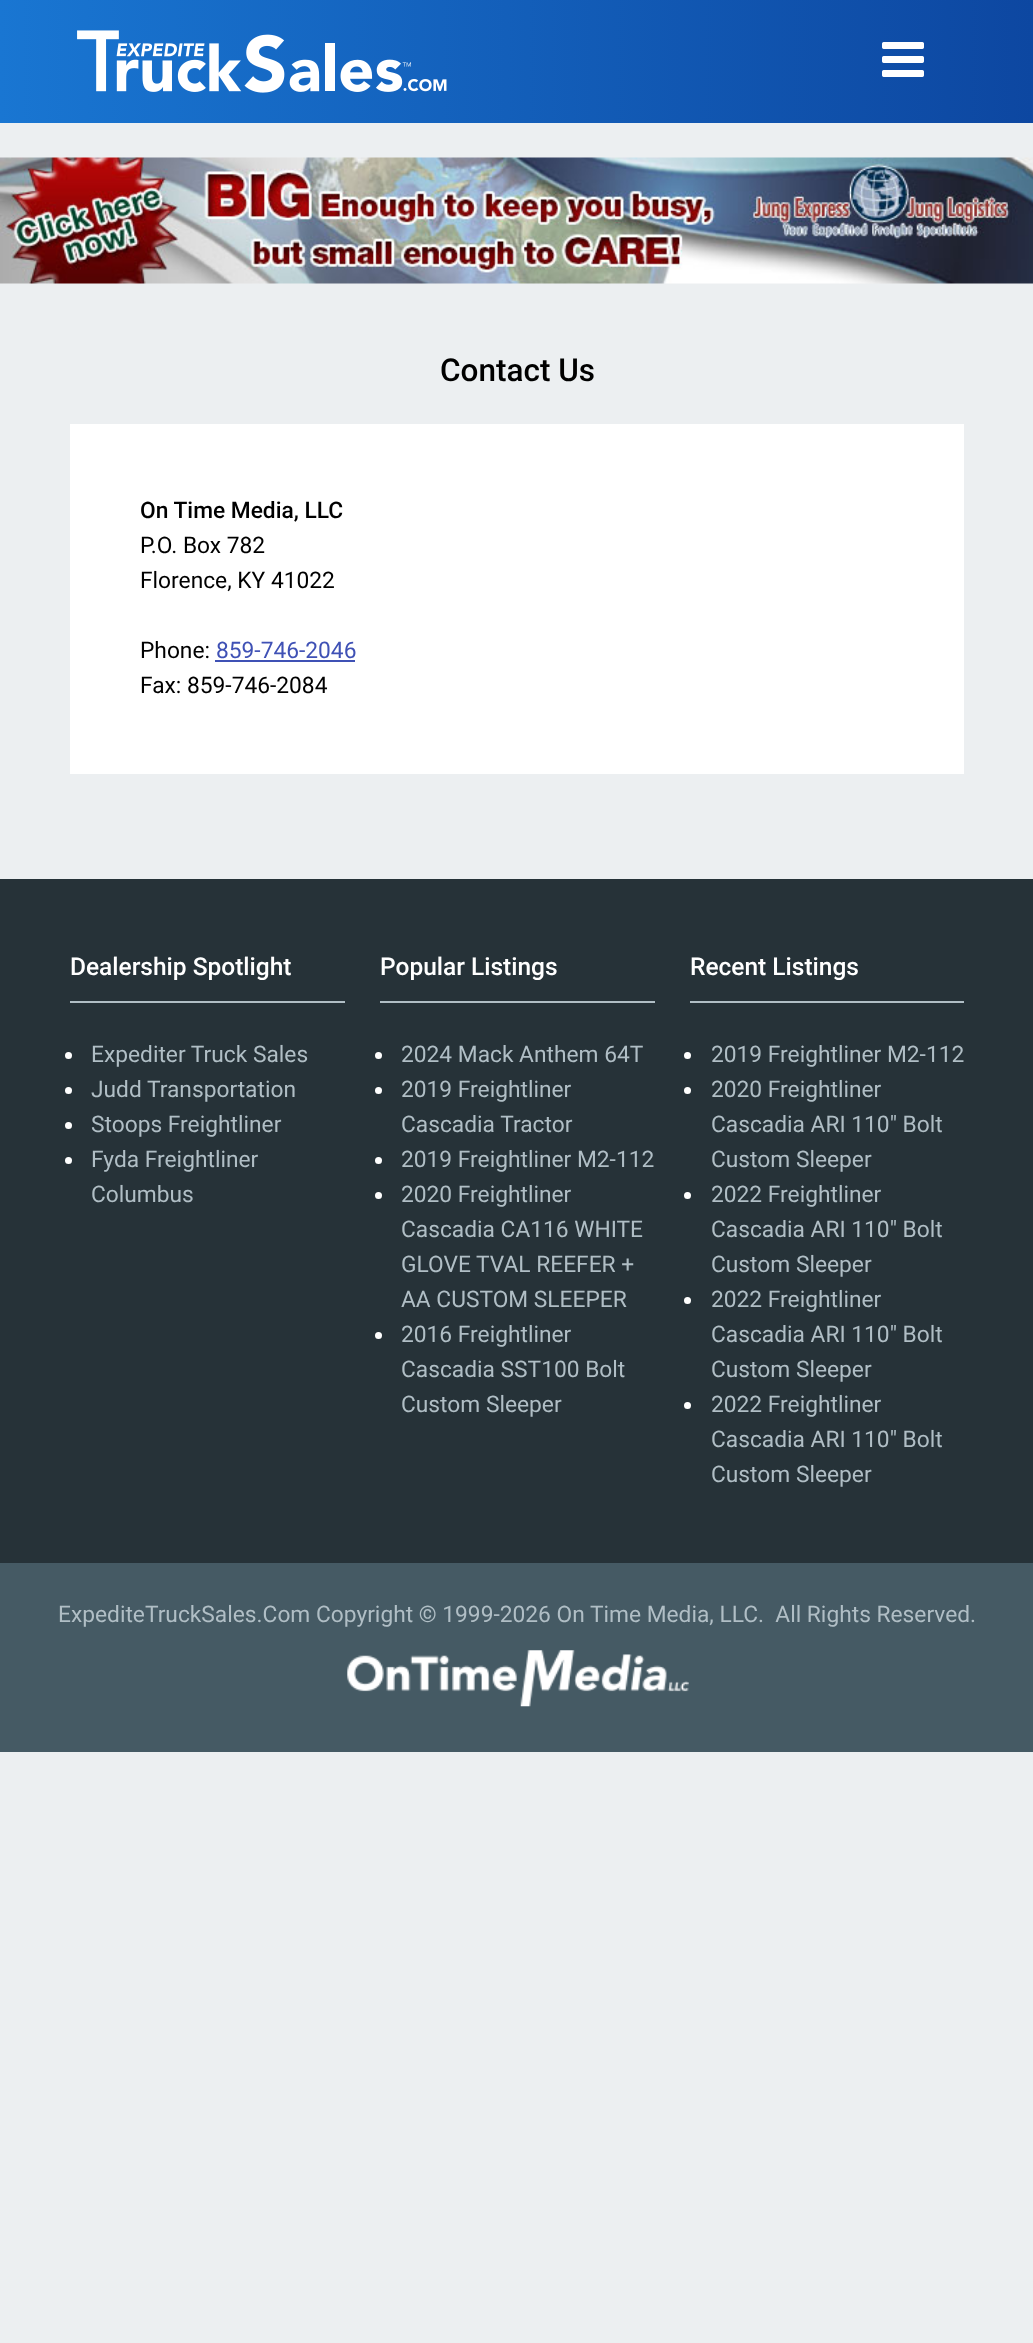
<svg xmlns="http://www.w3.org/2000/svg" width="1033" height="2343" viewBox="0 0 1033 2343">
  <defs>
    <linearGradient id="g1" gradientUnits="userSpaceOnUse" x1="0" y1="61" x2="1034" y2="61"><stop offset="0" stop-color="rgb(25,118,210)"/><stop offset="1" stop-color="rgb(13,71,161)"/></linearGradient>
  </defs>
  <rect width="100%" height="100%" fill="rgb(236,239,241)"/>
  <rect x="0" y="0" width="1033" height="123" fill="url(#g1)"/>
  <image x="77" y="30" width="370" height="63" href="pic1.png"/>
  <image x="882" y="42" width="42" height="35" href="pic2.png"/>
  <image x="0" y="157" width="1033" height="127" href="pic3.png"/>
  <text x="440" y="381" font-family="Roboto" font-size="31.5" font-weight="500" fill="rgb(0,0,0)">Contact Us</text>
  <rect x="70" y="424" width="894" height="350" fill="rgb(255,255,255)"/>
  <text x="140" y="518" font-family="Roboto" font-size="22.75" font-weight="500" fill="rgb(0,0,0)">On Time Media, LLC</text>
  <g font-family="Roboto" font-size="22.75" fill="rgb(0,0,0)">
    <text>
      <tspan x="140" y="553">P.O. Box 782</tspan>
      <tspan x="140" y="588">Florence, KY 41022</tspan>
    </text>
    <text x="140" y="658">Phone:</text>
  </g>
  <text x="216" y="658" font-family="Roboto" font-size="22.75" fill="rgb(63,81,181)">859-746-2046</text>
  <rect x="215" y="660" width="140" height="2" fill="rgb(63,81,181)"/>
  <text x="140" y="693" font-family="Roboto" font-size="22.75" fill="rgb(0,0,0)">Fax: 859-746-2084</text>
  <rect x="0" y="879" width="1033" height="684" fill="rgb(38,50,56)"/>
  <rect x="70" y="1001" width="275" height="2" fill="rgb(176,190,197)"/>
  <text x="70" y="975" font-family="Roboto" font-size="24.5" font-weight="500" fill="rgb(255,255,255)">Dealership Spotlight</text>
  <circle cx="68.5" cy="1055.5" r="3.5" fill="rgb(255,255,255)"/>
  <text x="91" y="1062" font-family="Roboto" font-size="22.75" fill="rgb(176,190,197)">Expediter Truck Sales</text>
  <circle cx="68.5" cy="1090.5" r="3.5" fill="rgb(255,255,255)"/>
  <text x="91" y="1097" font-family="Roboto" font-size="22.75" fill="rgb(176,190,197)">Judd Transportation</text>
  <circle cx="68.5" cy="1125.5" r="3.5" fill="rgb(255,255,255)"/>
  <text x="91" y="1132" font-family="Roboto" font-size="22.75" fill="rgb(176,190,197)">Stoops Freightliner</text>
  <circle cx="68.5" cy="1160.5" r="3.5" fill="rgb(255,255,255)"/>
  <g font-family="Roboto" font-size="22.75" fill="rgb(176,190,197)">
    <text>
      <tspan x="91" y="1167">Fyda Freightliner</tspan>
      <tspan x="91" y="1202">Columbus</tspan>
    </text>
  </g>
  <rect x="380" y="1001" width="275" height="2" fill="rgb(176,190,197)"/>
  <text x="380" y="975" font-family="Roboto" font-size="24.5" font-weight="500" fill="rgb(255,255,255)">Popular Listings</text>
  <circle cx="378.5" cy="1055.5" r="3.5" fill="rgb(255,255,255)"/>
  <text x="401" y="1062" font-family="Roboto" font-size="22.75" fill="rgb(176,190,197)">2024 Mack Anthem 64T</text>
  <circle cx="378.5" cy="1090.5" r="3.5" fill="rgb(255,255,255)"/>
  <g font-family="Roboto" font-size="22.75" fill="rgb(176,190,197)">
    <text>
      <tspan x="401" y="1097">2019 Freightliner</tspan>
      <tspan x="401" y="1132">Cascadia Tractor</tspan>
    </text>
  </g>
  <circle cx="378.5" cy="1160.5" r="3.5" fill="rgb(255,255,255)"/>
  <text x="401" y="1167" font-family="Roboto" font-size="22.75" fill="rgb(176,190,197)">2019 Freightliner M2-112</text>
  <circle cx="378.5" cy="1195.5" r="3.5" fill="rgb(255,255,255)"/>
  <g font-family="Roboto" font-size="22.75" fill="rgb(176,190,197)">
    <text>
      <tspan x="401" y="1202">2020 Freightliner</tspan>
      <tspan x="401" y="1237">Cascadia CA116 WHITE</tspan>
      <tspan x="401" y="1272">GLOVE TVAL REEFER +</tspan>
      <tspan x="401" y="1307">AA CUSTOM SLEEPER</tspan>
    </text>
  </g>
  <circle cx="378.5" cy="1335.5" r="3.5" fill="rgb(255,255,255)"/>
  <g font-family="Roboto" font-size="22.75" fill="rgb(176,190,197)">
    <text>
      <tspan x="401" y="1342">2016 Freightliner</tspan>
      <tspan x="401" y="1377">Cascadia SST100 Bolt</tspan>
      <tspan x="401" y="1412">Custom Sleeper</tspan>
    </text>
  </g>
  <rect x="690" y="1001" width="274" height="2" fill="rgb(176,190,197)"/>
  <text x="690" y="975" font-family="Roboto" font-size="24.5" font-weight="500" fill="rgb(255,255,255)">Recent Listings</text>
  <circle cx="687.5" cy="1055.5" r="3.5" fill="rgb(255,255,255)"/>
  <text x="711" y="1062" font-family="Roboto" font-size="22.75" fill="rgb(176,190,197)">2019 Freightliner M2-112</text>
  <circle cx="687.5" cy="1090.5" r="3.5" fill="rgb(255,255,255)"/>
  <g font-family="Roboto" font-size="22.75" fill="rgb(176,190,197)">
    <text>
      <tspan x="711" y="1097">2020 Freightliner</tspan>
      <tspan x="711" y="1132">Cascadia ARI 110" Bolt</tspan>
      <tspan x="711" y="1167">Custom Sleeper</tspan>
    </text>
  </g>
  <circle cx="687.5" cy="1195.5" r="3.5" fill="rgb(255,255,255)"/>
  <g font-family="Roboto" font-size="22.75" fill="rgb(176,190,197)">
    <text>
      <tspan x="711" y="1202">2022 Freightliner</tspan>
      <tspan x="711" y="1237">Cascadia ARI 110" Bolt</tspan>
      <tspan x="711" y="1272">Custom Sleeper</tspan>
    </text>
  </g>
  <circle cx="687.5" cy="1300.5" r="3.5" fill="rgb(255,255,255)"/>
  <g font-family="Roboto" font-size="22.75" fill="rgb(176,190,197)">
    <text>
      <tspan x="711" y="1307">2022 Freightliner</tspan>
      <tspan x="711" y="1342">Cascadia ARI 110" Bolt</tspan>
      <tspan x="711" y="1377">Custom Sleeper</tspan>
    </text>
  </g>
  <circle cx="687.5" cy="1405.5" r="3.5" fill="rgb(255,255,255)"/>
  <g font-family="Roboto" font-size="22.75" fill="rgb(176,190,197)">
    <text>
      <tspan x="711" y="1412">2022 Freightliner</tspan>
      <tspan x="711" y="1447">Cascadia ARI 110" Bolt</tspan>
      <tspan x="711" y="1482">Custom Sleeper</tspan>
    </text>
  </g>
  <rect x="0" y="1563" width="1033" height="189" fill="rgb(69,90,100)"/>
  <g font-family="Roboto" font-size="22.75" fill="rgb(176,190,197)">
    <text x="58" y="1622">ExpediteTruckSales.Com Copyright © 1999-2026 On Time Media, LLC</text>
    <text x="758" y="1622" xml:space="preserve">.  All Rights Reserved.</text>
  </g>
  <image x="347" y="1650" width="342" height="57" href="pic4.png"/>
</svg>
